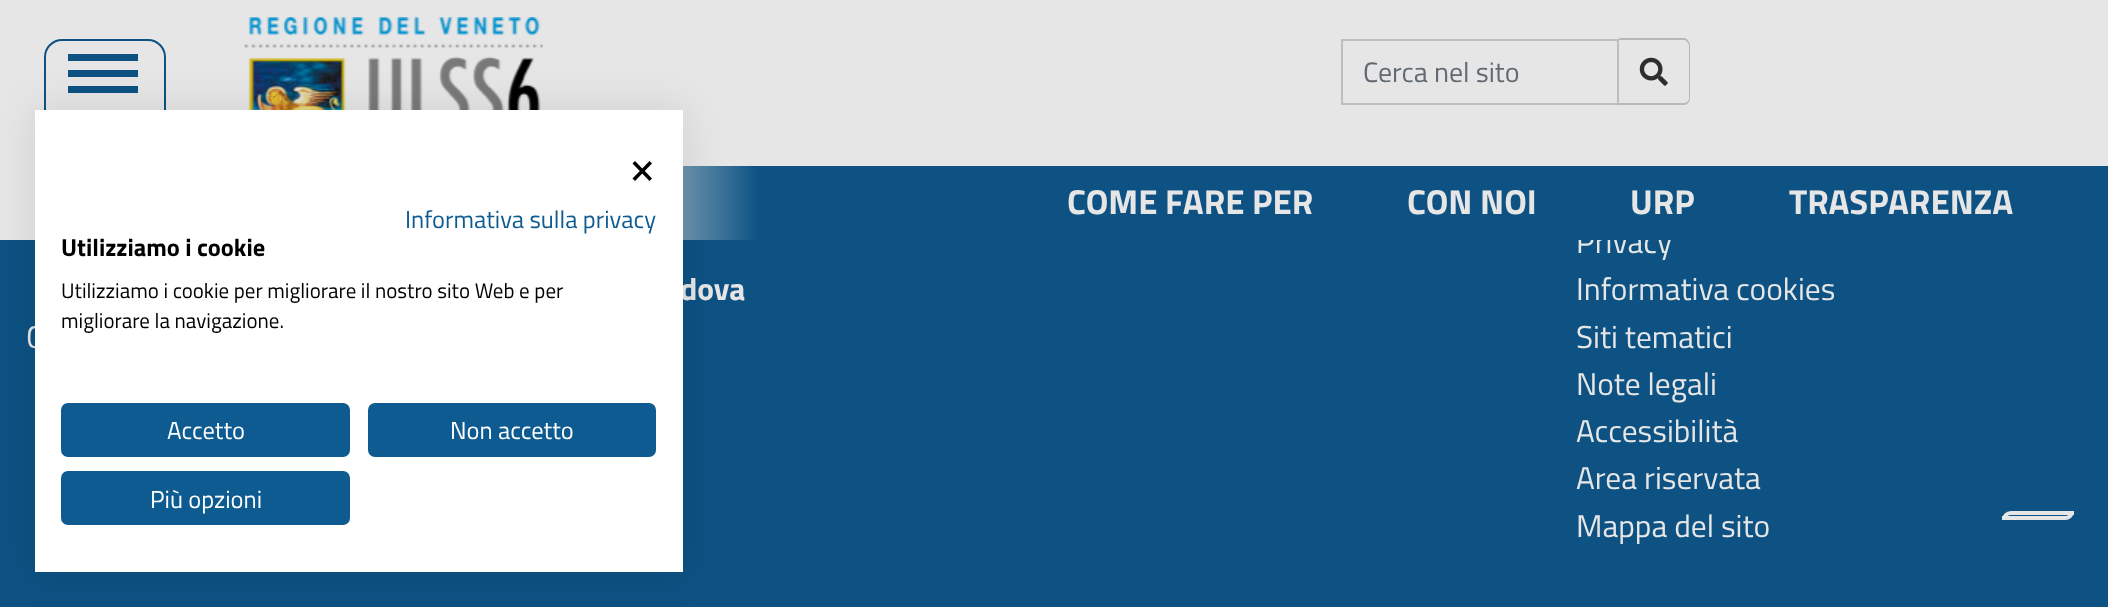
<svg xmlns="http://www.w3.org/2000/svg" width="2108" height="607" viewBox="0 0 2108 607">
  <defs>
    <linearGradient id="g1" gradientUnits="userSpaceOnUse" x1="420" y1="203" x2="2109" y2="203"><stop offset="0.1" stop-color="rgb(230,230,230)"/><stop offset="0.2" stop-color="rgb(13,82,131)"/></linearGradient>
  </defs>
  <rect width="100%" height="100%" fill="rgb(13,82,131)"/>
  <rect x="0" y="0" width="2108" height="240" fill="rgb(230,230,230)"/>
  <rect x="45" y="40" width="120" height="104" rx="17" fill="none" stroke="rgb(13,82,131)" stroke-width="2"/>
  <rect x="68" y="70" width="70" height="7" fill="rgb(13,82,131)"/>
  <rect x="68" y="54" width="70" height="7" fill="rgb(13,82,131)"/>
  <rect x="68" y="86" width="70" height="7" fill="rgb(13,82,131)"/>
  <image x="244" y="17" width="299" height="93" href="pic1.png"/>
  <rect x="1342" y="40" width="276" height="64" fill="none" stroke="rgb(185,191,196)" stroke-width="2"/>
  <text x="1363" y="82" font-family="Titillium Web" font-size="28" fill="rgb(97,105,113)">Cerca nel sito</text>
  <path d="M1619 38H1684C1687 38 1690 42 1690 46V98C1690 102 1687 105 1684 105H1619ZM1619 40H1684C1686 40 1689 43 1689 46V98C1689 101 1686 103 1684 103H1619Z" fill="rgb(184,184,184)" fill-rule="evenodd"/>
  <image x="1639" y="57" width="29" height="29" href="pic2.png"/>
  <text x="1576" y="253" font-family="Titillium Web" font-size="31.5" fill="rgb(230,230,230)">Privacy</text>
  <rect x="683" y="166" width="1425" height="74" fill="url(#g1)"/>
  <g font-family="Titillium Web" font-size="34.75" font-weight="bold" fill="rgb(230,230,230)">
    <text x="1067" y="214">COME FARE PER</text>
    <text x="1407" y="214">CON NOI</text>
    <text x="1630" y="214">URP</text>
    <text x="1789" y="214">TRASPARENZA</text>
  </g>
  <text x="680" y="300" font-family="Titillium Web" font-size="31.5" font-weight="bold" fill="rgb(230,230,230)">dova</text>
  <g font-family="Titillium Web" font-size="31.5" fill="rgb(230,230,230)">
    <text x="26" y="348">C</text>
    <text>
      <tspan x="1576" y="300">Informativa cookies</tspan>
      <tspan x="1576" y="348">Siti tematici</tspan>
      <tspan x="1576" y="395">Note legali</tspan>
      <tspan x="1576" y="442">Accessibilità</tspan>
      <tspan x="1576" y="489">Area riservata</tspan>
      <tspan x="1576" y="537">Mappa del sito</tspan>
    </text>
  </g>
  <path d="M2011 513H2072V511C2072 515 2069 518 2065 518H2004V520C2004 516 2007 513 2011 513Z" fill="none" stroke="rgb(230,230,230)" stroke-width="4"/>
  <rect x="35" y="110" width="648" height="462" fill="rgba(0,0,0,0.1)" filter="blur(21px)"/>
  <rect x="35" y="110" width="648" height="462" fill="rgb(255,255,255)"/>
  <path d="M649.5 161L652 163.5L635 181L632.5 178.5Z" fill="rgb(0,0,0)"/>
  <path d="M632.5 163.5L635 161L652 178.5L649.5 181Z" fill="rgb(0,0,0)"/>
  <text x="405" y="228" font-family="Titillium Web" font-size="24.5" fill="rgb(14,91,146)">Informativa sulla privacy</text>
  <text x="61" y="256" font-family="Titillium Web" font-size="24.5" font-weight="bold" fill="rgb(0,0,0)">Utilizziamo i cookie</text>
  <g font-family="Titillium Web" font-size="21" fill="rgb(0,0,0)">
    <text>
      <tspan x="61" y="298">Utilizziamo i cookie per migliorare il nostro sito Web e per</tspan>
      <tspan x="61" y="328">migliorare la navigazione.</tspan>
    </text>
  </g>
  <rect x="62" y="404" width="287" height="52" rx="6" fill="rgb(14,91,146)" stroke="rgb(14,91,146)" stroke-width="2"/>
  <text x="167" y="439" font-family="Titillium Web" font-size="24.5" fill="rgb(255,255,255)">Accetto</text>
  <rect x="369" y="404" width="286" height="52" rx="6" fill="rgb(14,91,146)" stroke="rgb(14,91,146)" stroke-width="2"/>
  <text x="450" y="439" font-family="Titillium Web" font-size="24.5" fill="rgb(255,255,255)">Non accetto</text>
  <rect x="62" y="472" width="287" height="52" rx="6" fill="rgb(14,91,146)" stroke="rgb(14,91,146)" stroke-width="2"/>
  <text x="150" y="508" font-family="Titillium Web" font-size="24.5" fill="rgb(255,255,255)">Più opzioni</text>
</svg>
